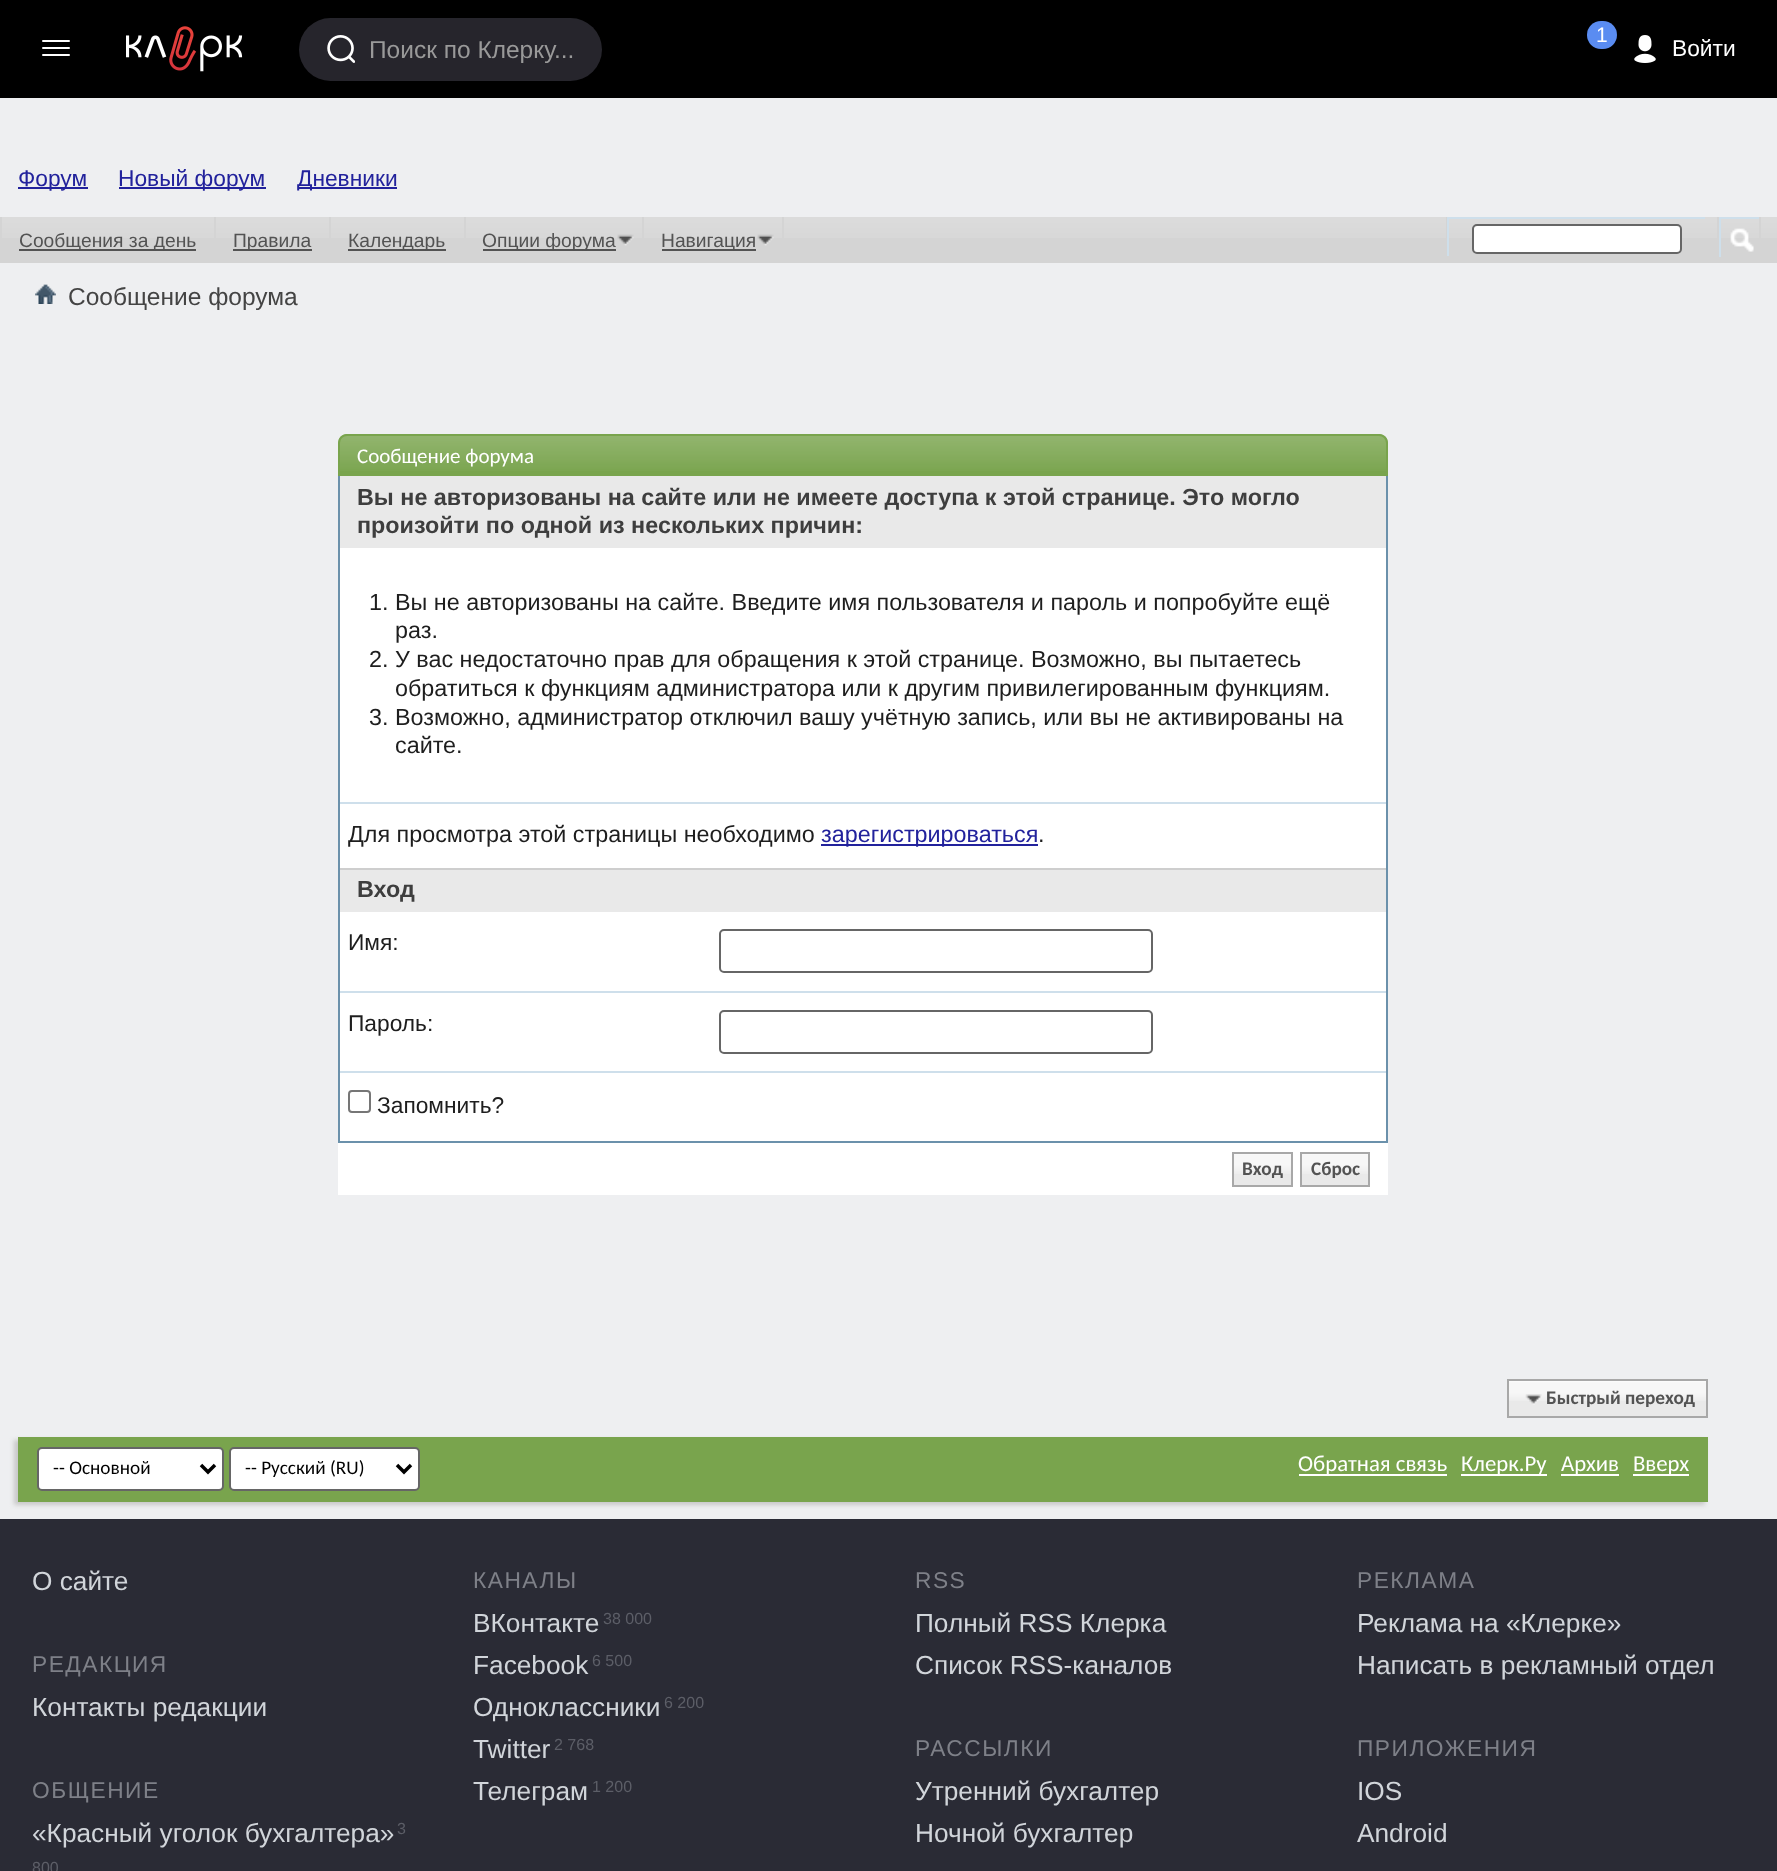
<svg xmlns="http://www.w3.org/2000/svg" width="1777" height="1871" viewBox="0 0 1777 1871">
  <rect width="100%" height="100%" fill="rgb(238,239,241)"/>
  <rect x="0" y="0" width="1777" height="98" fill="rgb(0,0,0)"/>
  <rect x="42" y="40" width="28" height="2" rx="1" fill="rgb(255,255,255)"/>
  <rect x="42" y="47" width="28" height="2" rx="1" fill="rgb(255,255,255)"/>
  <rect x="42" y="54" width="28" height="2" rx="1" fill="rgb(255,255,255)"/>
  <image x="126" y="26" width="117" height="46" href="pic1.png"/>
  <rect x="299" y="18" width="303" height="63" rx="31.5" fill="rgb(38,37,44)"/>
  <image x="327" y="35" width="28" height="28" href="pic2.png"/>
  <text x="369" y="58" font-family="Liberation Sans" font-size="24.5" fill="rgb(153,153,153)">Поиск по Клерку...</text>
  <rect x="1587" y="21" width="30" height="28" rx="14" fill="rgb(90,140,241)"/>
  <text x="1596" y="42" font-family="Liberation Sans" font-size="21" fill="rgb(255,255,255)">1</text>
  <image x="1634" y="35" width="22" height="28" href="pic3.png"/>
  <text x="1672" y="56" font-family="Liberation Sans" font-size="22.75" fill="rgb(255,255,255)">Войти</text>
  <rect x="18" y="187" width="70" height="2" fill="rgb(34,34,156)"/>
  <text x="18" y="186" font-family="Liberation Sans" font-size="22.75" fill="rgb(34,34,156)">Форум</text>
  <rect x="119" y="187" width="147" height="2" fill="rgb(34,34,156)"/>
  <text x="118" y="186" font-family="Liberation Sans" font-size="22.75" fill="rgb(34,34,156)">Новый форум</text>
  <rect x="298" y="187" width="99" height="2" fill="rgb(34,34,156)"/>
  <text x="297" y="186" font-family="Liberation Sans" font-size="22.75" fill="rgb(34,34,156)">Дневники</text>
  <rect x="0" y="217" width="1777" height="46" fill="rgb(212,212,212)"/>
  <image x="2" y="217" width="1775" height="21" href="pic4.png"/>
  <rect x="214" y="217" width="2" height="21" fill="rgb(212,212,212)"/>
  <rect x="19" y="249" width="177" height="2" fill="rgb(83,83,83)"/>
  <text x="19" y="247" font-family="Liberation Sans" font-size="19.25" fill="rgb(83,83,83)">Сообщения за день</text>
  <rect x="329" y="217" width="2" height="21" fill="rgb(212,212,212)"/>
  <rect x="233" y="249" width="79" height="2" fill="rgb(83,83,83)"/>
  <text x="233" y="247" font-family="Liberation Sans" font-size="19.25" fill="rgb(83,83,83)">Правила</text>
  <rect x="464" y="217" width="2" height="21" fill="rgb(212,212,212)"/>
  <rect x="348" y="249" width="98" height="2" fill="rgb(83,83,83)"/>
  <text x="348" y="247" font-family="Liberation Sans" font-size="19.25" fill="rgb(83,83,83)">Календарь</text>
  <rect x="642" y="217" width="2" height="21" fill="rgb(212,212,212)"/>
  <rect x="483" y="249" width="133" height="2" fill="rgb(83,83,83)"/>
  <text x="482" y="247" font-family="Liberation Sans" font-size="19.25" fill="rgb(83,83,83)">Опции форума</text>
  <image x="617" y="234" width="17" height="12" href="pic5.png"/>
  <rect x="782" y="217" width="2" height="21" fill="rgb(212,212,212)"/>
  <rect x="662" y="249" width="94" height="2" fill="rgb(83,83,83)"/>
  <text x="661" y="247" font-family="Liberation Sans" font-size="19.25" fill="rgb(83,83,83)">Навигация</text>
  <image x="757" y="234" width="17" height="12" href="pic5.png"/>
  <rect x="1446" y="217" width="2" height="21" fill="rgb(212,212,212)"/>
  <rect x="1447" y="217" width="258" height="2" fill="rgb(206,223,235)"/>
  <rect x="1447" y="217" width="2" height="39" fill="rgb(206,223,235)"/>
  <rect x="1473" y="225" width="208" height="28" rx="4" fill="rgb(255,255,255)" stroke="rgb(102,102,102)" stroke-width="2"/>
  <rect x="1759" y="217" width="2" height="21" fill="rgb(212,212,212)"/>
  <rect x="1717" y="217" width="2" height="21" fill="rgb(212,212,212)"/>
  <rect x="1719" y="217" width="40" height="2" fill="rgb(206,223,235)"/>
  <rect x="1719" y="217" width="2" height="40" fill="rgb(206,223,235)"/>
  <image x="1730" y="228" width="24" height="24" href="pic6.png"/>
  <image x="35" y="284" width="21" height="20" href="pic7.png"/>
  <text x="68" y="305" font-family="Liberation Sans" font-size="24.5" fill="rgb(68,68,68)">Сообщение форума</text>
  <path d="M347 434H1379C1384 434 1388 438 1388 443V476H338V443C338 438 342 434 347 434Z" fill="rgb(121,164,77)"/>
  <image x="338" y="435" width="1050" height="36" href="pic8.png"/>
  <path d="M347 435H1379C1383.5 435 1387 438.5 1387 443V475H339V443C339 438.5 342.5 435 347 435Z" fill="none" stroke="rgb(121,164,77)" stroke-width="2"/>
  <text x="357" y="463" font-family="Carlito" font-size="21" fill="rgb(255,255,255)">Сообщение форума</text>
  <rect x="340" y="548" width="1046" height="593" fill="rgb(255,255,255)"/>
  <rect x="1386" y="476" width="2" height="667" fill="rgb(107,145,171)"/>
  <rect x="338" y="1141" width="1050" height="2" fill="rgb(107,145,171)"/>
  <rect x="338" y="476" width="2" height="667" fill="rgb(107,145,171)"/>
  <rect x="340" y="476" width="1046" height="72" fill="rgb(233,233,233)"/>
  <g font-family="Liberation Sans" font-size="23.35" font-weight="bold" fill="rgb(62,62,62)">
    <text>
      <tspan x="357" y="505">Вы не авторизованы на сайте или не имеете доступа к этой странице. Это могло</tspan>
      <tspan x="357" y="533">произойти по одной из нескольких причин:</tspan>
    </text>
  </g>
  <g font-family="Liberation Sans" font-size="23.35" fill="rgb(30,30,30)">
    <text x="369" y="610">1. Вы не авторизованы на сайте. Введите имя пользователя и пароль и попробуйте ещё</text>
    <text x="395" y="638">раз.</text>
    <text x="369" y="667">2. У вас недостаточно прав для обращения к этой странице. Возможно, вы пытаетесь</text>
    <text x="395" y="696">обратиться к функциям администратора или к другим привилегированным функциям.</text>
    <text x="369" y="725">3. Возможно, администратор отключил вашу учётную запись, или вы не активированы на</text>
    <text x="395" y="753">сайте.</text>
  </g>
  <rect x="340" y="802" width="1046" height="2" fill="rgb(206,223,235)"/>
  <text x="348" y="842" font-family="Liberation Sans" font-size="23.35" fill="rgb(30,30,30)">Для просмотра этой страницы необходимо</text>
  <rect x="821" y="844" width="217" height="2" fill="rgb(34,34,156)"/>
  <text x="821" y="842" font-family="Liberation Sans" font-size="23.35" fill="rgb(34,34,156)">зарегистрироваться</text>
  <text x="1038" y="842" font-family="Liberation Sans" font-size="23.35" fill="rgb(30,30,30)">.</text>
  <rect x="340" y="870" width="1046" height="42" fill="rgb(233,233,233)"/>
  <rect x="340" y="868" width="1046" height="2" fill="rgb(206,206,206)"/>
  <text x="357" y="897" font-family="Liberation Sans" font-size="23.35" font-weight="bold" fill="rgb(62,62,62)">Вход</text>
  <text x="348" y="950" font-family="Liberation Sans" font-size="22.75" fill="rgb(30,30,30)">Имя:</text>
  <rect x="720" y="930" width="432" height="42" rx="4" fill="none" stroke="rgb(102,102,102)" stroke-width="2"/>
  <rect x="340" y="991" width="1046" height="2" fill="rgb(206,223,235)"/>
  <text x="348" y="1031" font-family="Liberation Sans" font-size="22.75" fill="rgb(30,30,30)">Пароль:</text>
  <rect x="720" y="1011" width="432" height="42" rx="4" fill="none" stroke="rgb(102,102,102)" stroke-width="2"/>
  <rect x="340" y="1071" width="1046" height="2" fill="rgb(206,223,235)"/>
  <rect x="349" y="1091" width="21" height="21" rx="3" fill="none" stroke="rgb(118,118,118)" stroke-width="2"/>
  <text x="377" y="1113" font-family="Liberation Sans" font-size="22.75" fill="rgb(30,30,30)">Запомнить?</text>
  <rect x="338" y="1143" width="1050" height="52" fill="rgb(255,255,255)"/>
  <rect x="1234" y="1154" width="57" height="31" fill="rgb(233,233,233)"/>
  <image x="1234" y="1154" width="57" height="20" href="pic9.png"/>
  <rect x="1233" y="1153" width="59" height="33" fill="none" stroke="rgb(168,168,168)" stroke-width="2"/>
  <text x="1242" y="1175" font-family="Carlito" font-size="19.25" font-weight="bold" fill="rgb(83,83,83)">Вход</text>
  <rect x="1302" y="1154" width="66" height="31" fill="rgb(233,233,233)"/>
  <image x="1302" y="1154" width="66" height="20" href="pic10.png"/>
  <rect x="1301" y="1153" width="68" height="33" fill="none" stroke="rgb(168,168,168)" stroke-width="2"/>
  <text x="1311" y="1175" font-family="Carlito" font-size="19.25" font-weight="bold" fill="rgb(83,83,83)">Сброс</text>
  <rect x="1509" y="1381" width="197" height="35" fill="rgb(233,233,233)"/>
  <image x="1509" y="1381" width="197" height="20" href="pic11.png"/>
  <rect x="1508" y="1380" width="199" height="37" fill="none" stroke="rgb(168,168,168)" stroke-width="2"/>
  <image x="1525" y="1394" width="17" height="11" href="pic12.png"/>
  <text x="1546" y="1404" font-family="Carlito" font-size="19.25" font-weight="bold" fill="rgb(83,83,83)">Быстрый переход</text>
  <rect x="14" y="1440" width="1691" height="65" fill="rgb(200,200,200)" filter="blur(2px)"/>
  <rect x="18" y="1437" width="1690" height="65" fill="rgb(121,164,77)"/>
  <rect x="38" y="1448" width="185" height="42" rx="4" fill="rgb(255,255,255)" stroke="rgb(102,102,102)" stroke-width="2"/>
  <path d="M201 1465L208 1472L215 1465" fill="none" stroke="rgb(0,0,0)" stroke-width="3.5"/>
  <text x="53" y="1474" font-family="Carlito" font-size="19.25" fill="rgb(0,0,0)">-- Основной</text>
  <rect x="230" y="1448" width="189" height="42" rx="4" fill="rgb(255,255,255)" stroke="rgb(102,102,102)" stroke-width="2"/>
  <path d="M397 1465L404 1472L411 1465" fill="none" stroke="rgb(0,0,0)" stroke-width="3.5"/>
  <text x="245" y="1474" font-family="Carlito" font-size="19.25" fill="rgb(0,0,0)">-- Русский (RU)</text>
  <rect x="1299" y="1474" width="148" height="2" fill="rgb(255,255,255)"/>
  <text x="1298" y="1471" font-family="Carlito" font-size="22.75" fill="rgb(255,255,255)">Обратная связь</text>
  <rect x="1461" y="1474" width="86" height="2" fill="rgb(255,255,255)"/>
  <text x="1461" y="1471" font-family="Carlito" font-size="22.75" fill="rgb(255,255,255)">Клерк.Ру</text>
  <rect x="1561" y="1474" width="58" height="2" fill="rgb(255,255,255)"/>
  <text x="1561" y="1471" font-family="Carlito" font-size="22.75" fill="rgb(255,255,255)">Архив</text>
  <rect x="1633" y="1474" width="56" height="2" fill="rgb(255,255,255)"/>
  <text x="1633" y="1471" font-family="Carlito" font-size="22.75" fill="rgb(255,255,255)">Вверх</text>
  <rect x="0" y="1519" width="1777" height="352" fill="rgb(42,43,53)"/>
  <text x="32" y="1590" font-family="Liberation Sans" font-size="26.25" fill="rgb(209,213,218)">О сайте</text>
  <text x="32" y="1672" font-family="Liberation Sans" font-size="22.75" letter-spacing="1.5" fill="rgb(126,128,136)">РЕДАКЦИЯ</text>
  <text x="32" y="1716" font-family="Liberation Sans" font-size="26.25" fill="rgb(209,213,218)">Контакты редакции</text>
  <text x="32" y="1798" font-family="Liberation Sans" font-size="22.75" letter-spacing="1.5" fill="rgb(126,128,136)">ОБЩЕНИЕ</text>
  <text x="32" y="1842" font-family="Liberation Sans" font-size="26.25" fill="rgb(209,213,218)">«Красный уголок бухгалтера»</text>
  <g font-family="Liberation Sans" font-size="16" fill="rgb(92,94,103)">
    <text x="397" y="1834">3</text>
    <text x="32" y="1873">800</text>
  </g>
  <text x="473" y="1588" font-family="Liberation Sans" font-size="22.75" letter-spacing="1.5" fill="rgb(126,128,136)">КАНАЛЫ</text>
  <text x="473" y="1632" font-family="Liberation Sans" font-size="26.25" fill="rgb(209,213,218)">ВКонтакте</text>
  <text x="603" y="1624" font-family="Liberation Sans" font-size="16" fill="rgb(92,94,103)">38 000</text>
  <text x="473" y="1674" font-family="Liberation Sans" font-size="26.25" fill="rgb(209,213,218)">Facebook</text>
  <text x="592" y="1666" font-family="Liberation Sans" font-size="16" fill="rgb(92,94,103)">6 500</text>
  <text x="473" y="1716" font-family="Liberation Sans" font-size="26.25" fill="rgb(209,213,218)">Одноклассники</text>
  <text x="664" y="1708" font-family="Liberation Sans" font-size="16" fill="rgb(92,94,103)">6 200</text>
  <text x="473" y="1758" font-family="Liberation Sans" font-size="26.25" fill="rgb(209,213,218)">Twitter</text>
  <text x="554" y="1750" font-family="Liberation Sans" font-size="16" fill="rgb(92,94,103)">2 768</text>
  <text x="473" y="1800" font-family="Liberation Sans" font-size="26.25" fill="rgb(209,213,218)">Телеграм</text>
  <text x="592" y="1792" font-family="Liberation Sans" font-size="16" fill="rgb(92,94,103)">1 200</text>
  <text x="915" y="1588" font-family="Liberation Sans" font-size="22.75" letter-spacing="1.5" fill="rgb(126,128,136)">RSS</text>
  <g font-family="Liberation Sans" font-size="26.25" fill="rgb(209,213,218)">
    <text>
      <tspan x="915" y="1632">Полный RSS Клерка</tspan>
      <tspan x="915" y="1674">Список RSS-каналов</tspan>
    </text>
  </g>
  <text x="915" y="1756" font-family="Liberation Sans" font-size="22.75" letter-spacing="1.5" fill="rgb(126,128,136)">РАССЫЛКИ</text>
  <g font-family="Liberation Sans" font-size="26.25" fill="rgb(209,213,218)">
    <text>
      <tspan x="915" y="1800">Утренний бухгалтер</tspan>
      <tspan x="915" y="1842">Ночной бухгалтер</tspan>
    </text>
  </g>
  <text x="1357" y="1588" font-family="Liberation Sans" font-size="22.75" letter-spacing="1.5" fill="rgb(126,128,136)">РЕКЛАМА</text>
  <g font-family="Liberation Sans" font-size="26.25" fill="rgb(209,213,218)">
    <text>
      <tspan x="1357" y="1632">Реклама на «Клерке»</tspan>
      <tspan x="1357" y="1674">Написать в рекламный отдел</tspan>
    </text>
  </g>
  <text x="1357" y="1756" font-family="Liberation Sans" font-size="22.75" letter-spacing="1.5" fill="rgb(126,128,136)">ПРИЛОЖЕНИЯ</text>
  <g font-family="Liberation Sans" font-size="26.25" fill="rgb(209,213,218)">
    <text>
      <tspan x="1357" y="1800">IOS</tspan>
      <tspan x="1357" y="1842">Android</tspan>
    </text>
  </g>
</svg>
